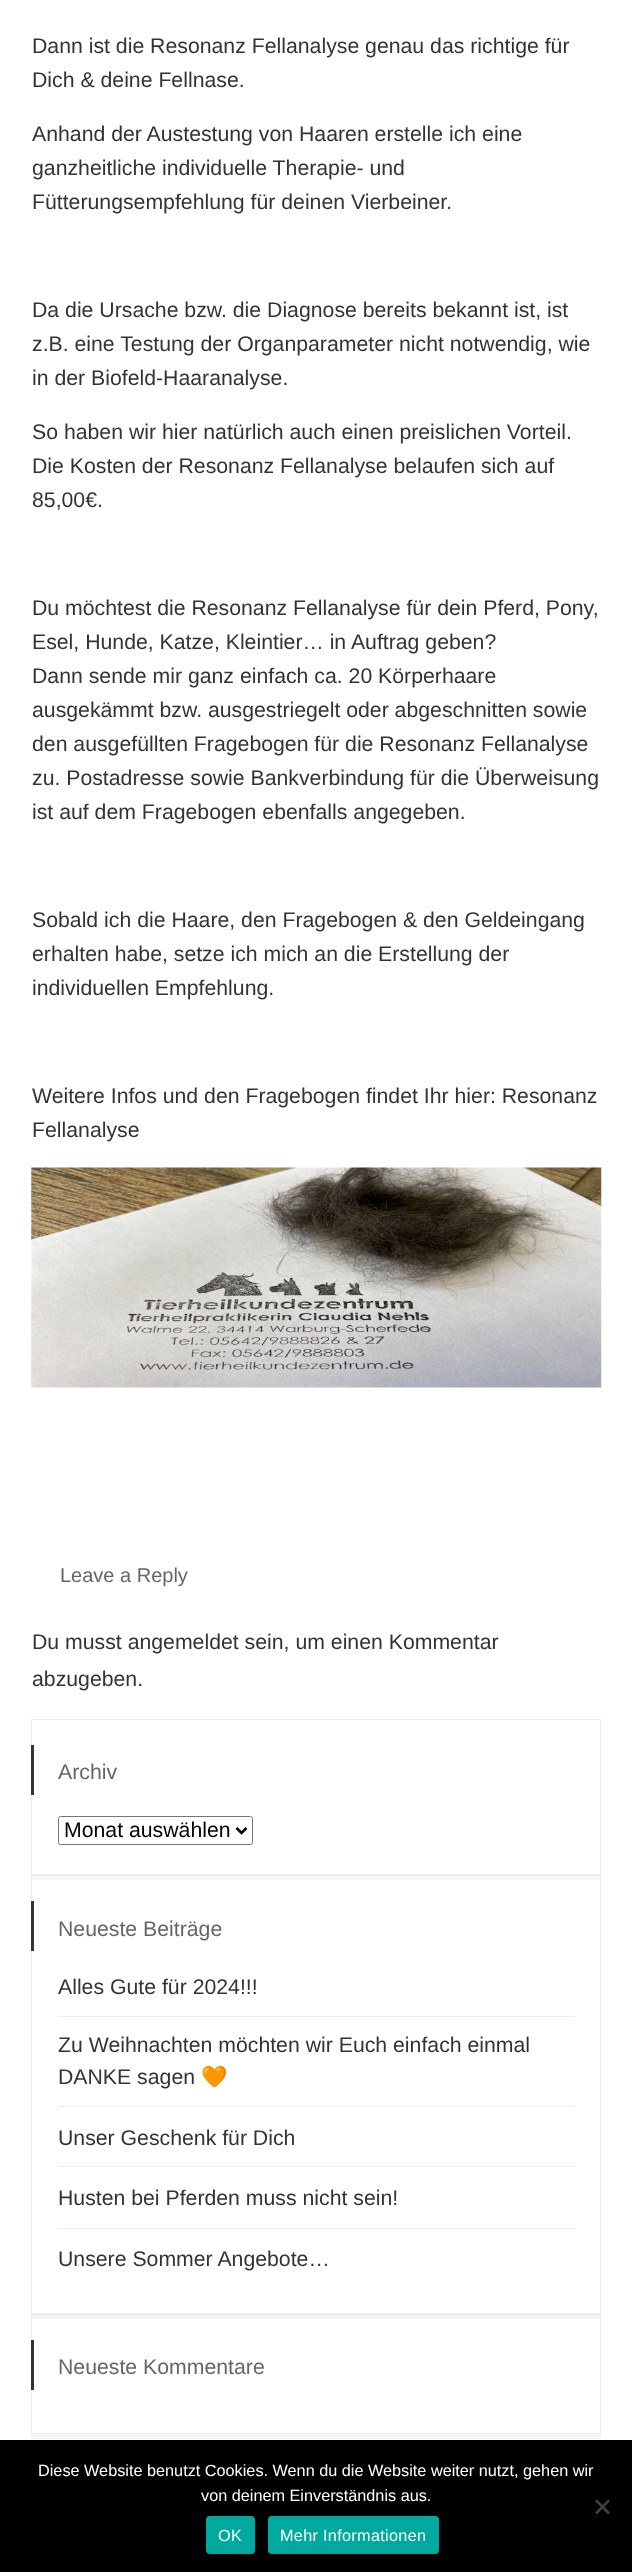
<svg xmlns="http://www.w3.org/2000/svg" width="632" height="2572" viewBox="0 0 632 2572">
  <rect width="100%" height="100%" fill="rgb(255,255,255)"/>
  <g font-family="Liberation Sans" font-size="21.25" fill="rgb(51,51,51)">
    <text>
      <tspan x="32" y="53">Dann ist die Resonanz Fellanalyse genau das richtige für</tspan>
      <tspan x="32" y="87">Dich &amp; deine Fellnase.</tspan>
    </text>
    <text>
      <tspan x="32" y="141">Anhand der Austestung von Haaren erstelle ich eine</tspan>
      <tspan x="32" y="175">ganzheitliche individuelle Therapie- und</tspan>
      <tspan x="32" y="209">Fütterungsempfehlung für deinen Vierbeiner.</tspan>
    </text>
    <text>
      <tspan x="32" y="317">Da die Ursache bzw. die Diagnose bereits bekannt ist, ist</tspan>
      <tspan x="32" y="351">z.B. eine Testung der Organparameter nicht notwendig, wie</tspan>
      <tspan x="32" y="385">in der Biofeld-Haaranalyse.</tspan>
    </text>
    <text>
      <tspan x="32" y="439">So haben wir hier natürlich auch einen preislichen Vorteil.</tspan>
      <tspan x="32" y="473">Die Kosten der Resonanz Fellanalyse belaufen sich auf</tspan>
      <tspan x="32" y="507">85,00€.</tspan>
    </text>
    <text>
      <tspan x="32" y="615">Du möchtest die Resonanz Fellanalyse für dein Pferd, Pony,</tspan>
      <tspan x="32" y="649">Esel, Hunde, Katze, Kleintier… in Auftrag geben?</tspan>
      <tspan x="32" y="683">Dann sende mir ganz einfach ca. 20 Körperhaare</tspan>
      <tspan x="32" y="717">ausgekämmt bzw. ausgestriegelt oder abgeschnitten sowie</tspan>
      <tspan x="32" y="751">den ausgefüllten Fragebogen für die Resonanz Fellanalyse</tspan>
      <tspan x="32" y="785">zu. Postadresse sowie Bankverbindung für die Überweisung</tspan>
      <tspan x="32" y="819">ist auf dem Fragebogen ebenfalls angegeben.</tspan>
    </text>
    <text>
      <tspan x="32" y="927">Sobald ich die Haare, den Fragebogen &amp; den Geldeingang</tspan>
      <tspan x="32" y="961">erhalten habe, setze ich mich an die Erstellung der</tspan>
      <tspan x="32" y="995">individuellen Empfehlung.</tspan>
    </text>
    <text>
      <tspan x="32" y="1103">Weitere Infos und den Fragebogen findet Ihr hier: Resonanz</tspan>
      <tspan x="32" y="1137">Fellanalyse</tspan>
    </text>
  </g>
  <image x="31" y="1167" width="571" height="221" href="pic1.png"/>
  <text x="60" y="1582" font-family="Liberation Sans" font-size="20" fill="rgb(102,102,102)">Leave a Reply</text>
  <g font-family="Liberation Sans" font-size="21.25" fill="rgb(51,51,51)">
    <text>
      <tspan x="32" y="1649">Du musst angemeldet sein, um einen Kommentar</tspan>
      <tspan x="32" y="1686">abzugeben.</tspan>
    </text>
  </g>
  <path d="M31 1724V1880H601V1875H31Z" fill="rgb(245,245,245)"/>
  <rect x="31.5" y="1719.5" width="569" height="155" fill="none" stroke="rgb(237,237,237)"/>
  <rect x="31" y="1745" width="3" height="50" fill="rgb(51,51,51)"/>
  <text x="58" y="1779" font-family="Liberation Sans" font-size="21.25" fill="rgb(102,102,102)">Archiv</text>
  <rect x="58.5" y="1816.5" width="194" height="28" rx="2" fill="none" stroke="rgb(118,118,118)"/>
  <path d="M236.5 1828L241.5 1833L246.5 1828" fill="none" stroke="rgb(0,0,0)" stroke-width="2.5"/>
  <text x="64" y="1837" font-family="Liberation Sans" font-size="21.25" fill="rgb(0,0,0)">Monat auswählen</text>
  <path d="M31 1880V2319H601V2314H31Z" fill="rgb(245,245,245)"/>
  <rect x="31.5" y="1875.5" width="569" height="438" fill="none" stroke="rgb(237,237,237)"/>
  <rect x="31" y="1901" width="3" height="50" fill="rgb(51,51,51)"/>
  <text x="58" y="1936" font-family="Liberation Sans" font-size="21.25" fill="rgb(102,102,102)">Neueste Beiträge</text>
  <rect x="58" y="2016" width="517" height="1" fill="rgb(237,237,237)"/>
  <text x="58" y="1994" font-family="Liberation Sans" font-size="21.25" fill="rgb(51,51,51)">Alles Gute für 2024!!!</text>
  <rect x="58" y="2106" width="517" height="1" fill="rgb(237,237,237)"/>
  <g font-family="Liberation Sans" font-size="21.25" fill="rgb(51,51,51)">
    <text>
      <tspan x="58" y="2052">Zu Weihnachten möchten wir Euch einfach einmal</tspan>
      <tspan x="58" y="2084">DANKE sagen</tspan>
    </text>
  </g>
  <text x="201" y="2084" font-family="Noto Color Emoji" font-size="21.25" fill="rgb(51,51,51)">🧡</text>
  <rect x="58" y="2166" width="517" height="1" fill="rgb(237,237,237)"/>
  <text x="58" y="2145" font-family="Liberation Sans" font-size="21.25" fill="rgb(51,51,51)">Unser Geschenk für Dich</text>
  <rect x="58" y="2228" width="517" height="1" fill="rgb(237,237,237)"/>
  <g font-family="Liberation Sans" font-size="21.25" fill="rgb(51,51,51)">
    <text x="58" y="2205">Husten bei Pferden muss nicht sein!</text>
    <text x="58" y="2266">Unsere Sommer Angebote…</text>
  </g>
  <path d="M31 2319V2439H601V2434H31Z" fill="rgb(245,245,245)"/>
  <rect x="31.5" y="2314.5" width="569" height="119" fill="none" stroke="rgb(237,237,237)"/>
  <rect x="31" y="2340" width="3" height="50" fill="rgb(51,51,51)"/>
  <text x="58" y="2374" font-family="Liberation Sans" font-size="21.25" fill="rgb(102,102,102)">Neueste Kommentare</text>
  <rect x="0" y="2440" width="632" height="132" fill="rgb(0,0,0)"/>
  <g font-family="Liberation Sans" font-size="16.25" fill="rgb(255,255,255)">
    <text x="38" y="2476">Diese Website benutzt Cookies. Wenn du die Website weiter nutzt, gehen wir</text>
    <text x="201" y="2501">von deinem Einverständnis aus.</text>
  </g>
  <path d="M608 2499.5L610 2501L597 2514.5L595 2512.5Z" fill="rgb(64,64,64)"/>
  <path d="M595 2501L597 2499.5L610 2512.5L608 2514.5Z" fill="rgb(64,64,64)"/>
  <rect x="206" y="2516" width="49" height="38" rx="4" fill="rgb(0,169,157)"/>
  <text x="218" y="2541" font-family="Liberation Sans" font-size="16.25" letter-spacing="0.3" fill="rgb(255,255,255)">OK</text>
  <rect x="268" y="2516" width="171" height="38" rx="4" fill="rgb(0,169,157)"/>
  <text x="280" y="2541" font-family="Liberation Sans" font-size="16.25" letter-spacing="0.3" fill="rgb(255,255,255)">Mehr Informationen</text>
</svg>
